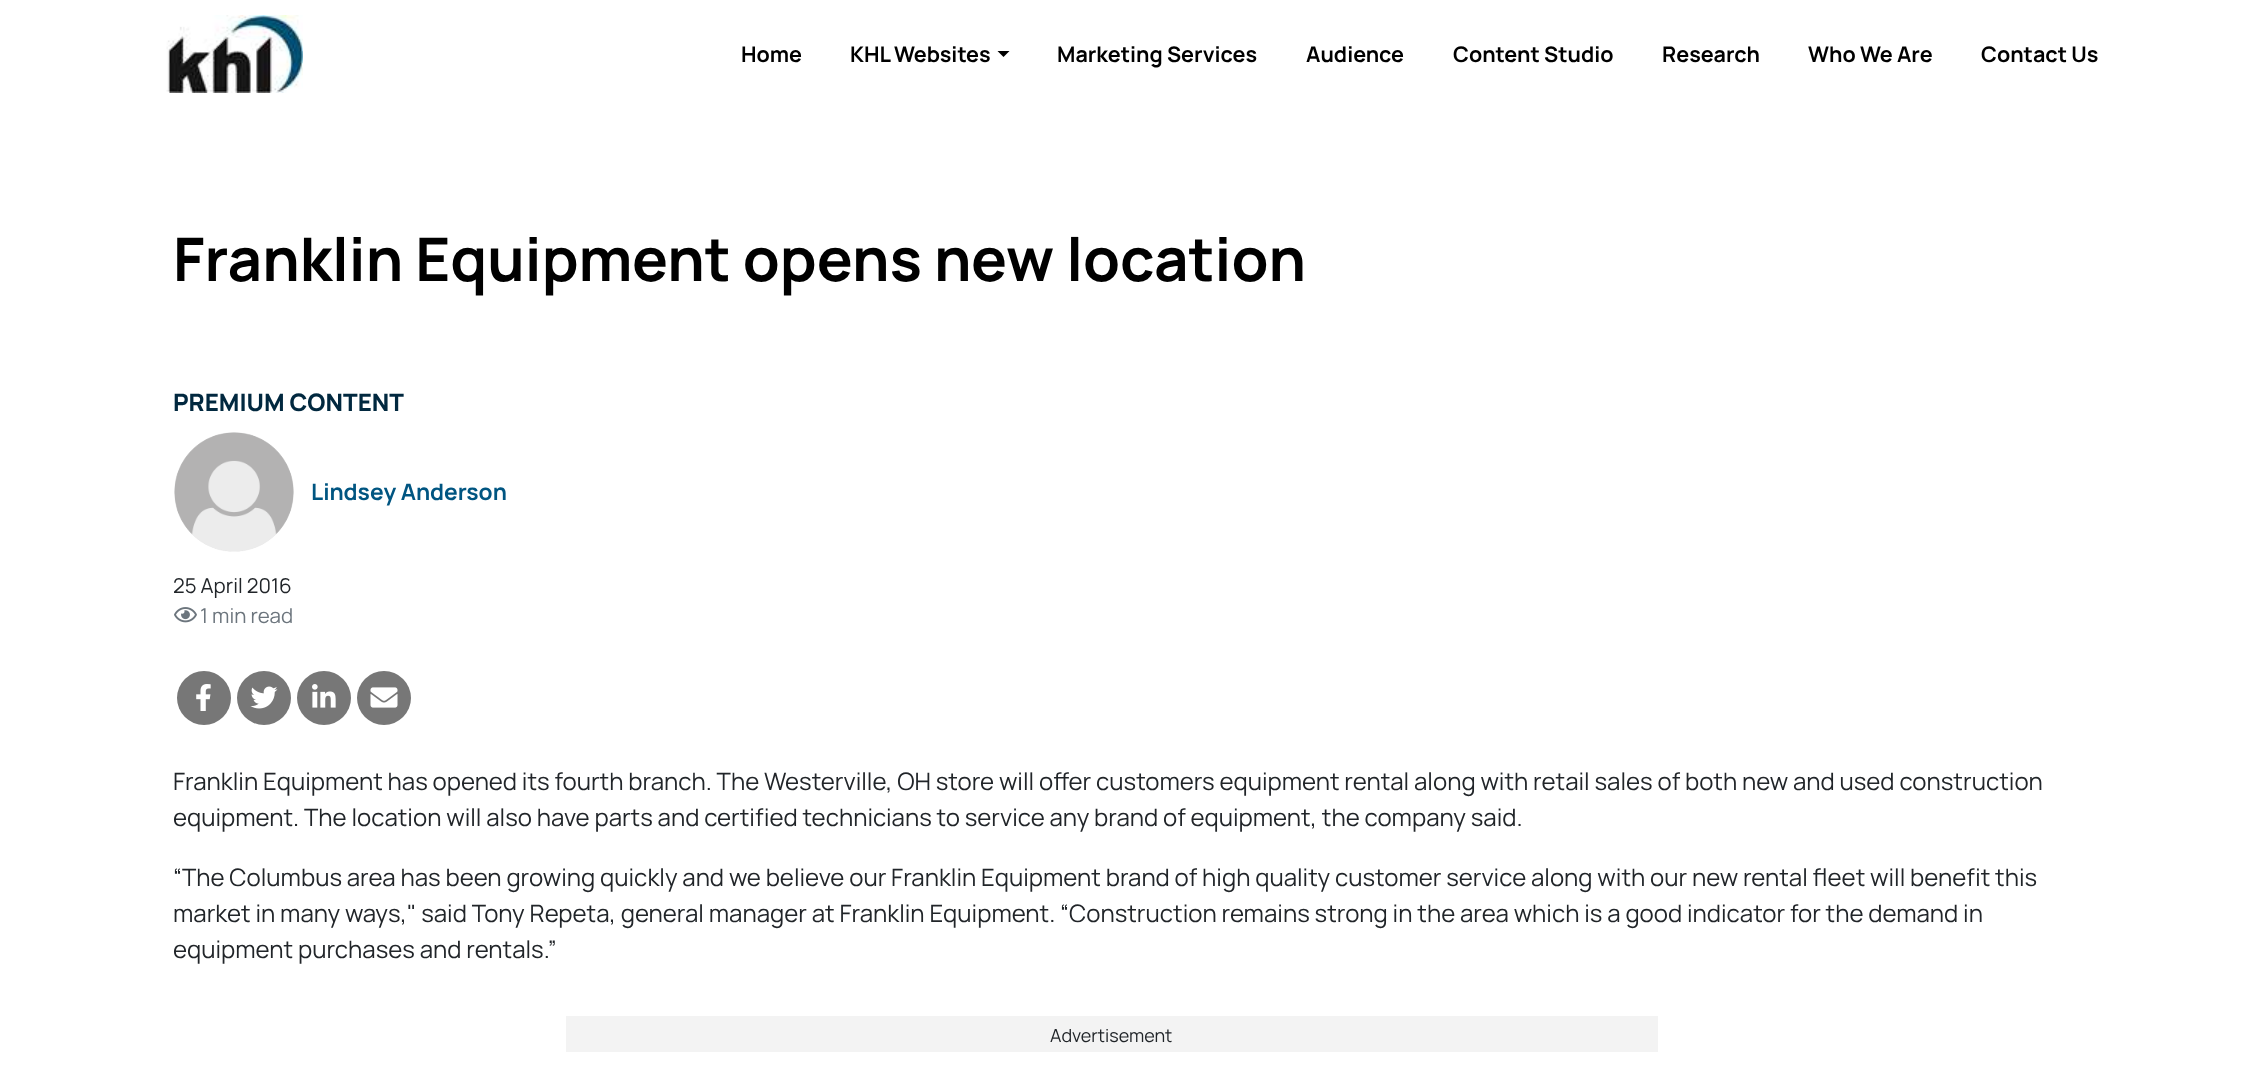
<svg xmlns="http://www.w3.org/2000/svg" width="2266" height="1083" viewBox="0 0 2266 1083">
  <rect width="100%" height="100%" fill="rgb(255,255,255)"/>
  <image x="166" y="15" width="137" height="78" href="pic1.png"/>
  <g font-family="Manrope" font-size="21.5" font-weight="bold" fill="rgb(0,0,0)">
    <text x="741" y="62">Home</text>
    <text x="850" y="62">KHL Websites</text>
  </g>
  <path d="M997.5 51H1009.5L1003.5 57Z" fill="rgb(0,0,0)"/>
  <g font-family="Manrope" font-size="21.5" font-weight="bold" fill="rgb(0,0,0)">
    <text x="1057" y="62">Marketing Services</text>
    <text x="1306" y="62">Audience</text>
    <text x="1453" y="62">Content Studio</text>
    <text x="1662" y="62">Research</text>
    <text x="1808" y="62">Who We Are</text>
    <text x="1981" y="62">Contact Us</text>
  </g>
  <text x="173" y="281" font-family="Manrope" font-size="60" font-weight="bold" fill="rgb(0,0,0)">Franklin Equipment opens new location</text>
  <text x="173" y="411" font-family="Manrope" font-size="24" font-weight="800" fill="rgb(1,40,63)">PREMIUM CONTENT</text>
  <image x="174" y="432" width="120" height="120" href="pic2.png"/>
  <text x="311" y="500" font-family="Manrope" font-size="22.75" font-weight="bold" fill="rgb(0,85,129)">Lindsey Anderson</text>
  <text x="173" y="593" font-family="Manrope" font-size="20.5" fill="rgb(33,37,41)">25 April 2016</text>
  <image x="174" y="607" width="23" height="16" href="pic3.png"/>
  <text x="200" y="623" font-family="Manrope" font-size="20.5" fill="rgb(108,117,125)">1 min read</text>
  <circle cx="204" cy="698" r="27" fill="rgb(119,119,119)"/>
  <image x="196" y="684" width="15" height="27" href="pic4.png"/>
  <circle cx="264" cy="698" r="27" fill="rgb(119,119,119)"/>
  <image x="250" y="686" width="28" height="23" href="pic5.png"/>
  <circle cx="324" cy="698" r="27" fill="rgb(119,119,119)"/>
  <image x="312" y="684" width="24" height="24" href="pic6.png"/>
  <circle cx="384" cy="698" r="27" fill="rgb(119,119,119)"/>
  <image x="370" y="687" width="28" height="21" href="pic7.png"/>
  <g font-family="Manrope" font-size="24" fill="rgb(33,37,41)">
    <text>
      <tspan x="173" y="790">Franklin Equipment has opened its fourth branch. The Westerville, OH store will offer customers equipment rental along with retail sales of both new and used construction</tspan>
      <tspan x="173" y="826">equipment. The location will also have parts and certified technicians to service any brand of equipment, the company said.</tspan>
    </text>
    <text>
      <tspan x="173" y="886">“The Columbus area has been growing quickly and we believe our Franklin Equipment brand of high quality customer service along with our new rental fleet will benefit this</tspan>
      <tspan x="173" y="922">market in many ways," said Tony Repeta, general manager at Franklin Equipment. “Construction remains strong in the area which is a good indicator for the demand in</tspan>
      <tspan x="173" y="958">equipment purchases and rentals.”</tspan>
    </text>
  </g>
  <rect x="566" y="1016" width="1092" height="36" fill="rgb(243,243,243)"/>
  <text x="1050" y="1042" font-family="Manrope" font-size="18" fill="rgb(33,37,41)">Advertisement</text>
</svg>
